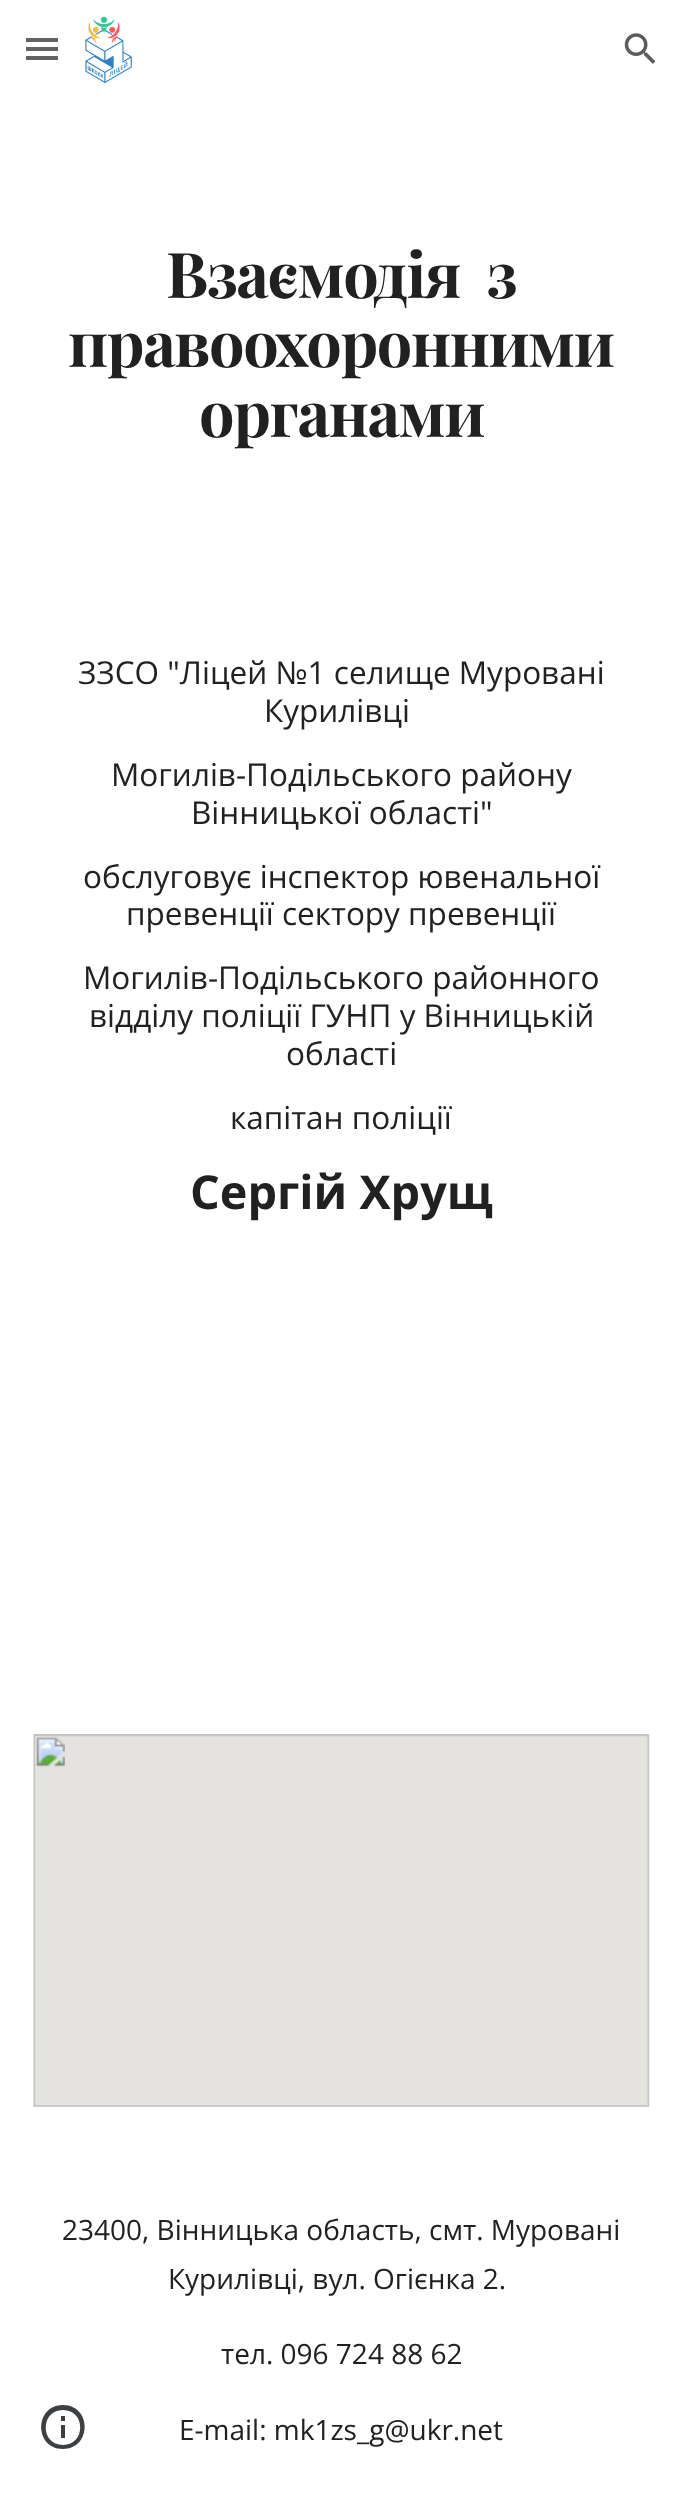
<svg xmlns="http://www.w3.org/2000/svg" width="682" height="2509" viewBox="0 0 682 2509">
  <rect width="100%" height="100%" fill="rgb(255,255,255)"/>
  <rect x="26" y="38" width="32" height="4" fill="rgb(98,98,98)"/>
  <rect x="26" y="47" width="32" height="4" fill="rgb(98,98,98)"/>
  <rect x="26" y="56" width="32" height="4" fill="rgb(98,98,98)"/>
  <image x="85" y="16" width="47" height="68" href="pic1.png"/>
  <image x="624" y="33" width="32" height="31" href="pic2.png"/>
  <g font-family="Playfair Display" font-size="63" font-weight="bold" letter-spacing="-1.4" fill="rgb(33,33,33)">
    <text x="166" y="298" xml:space="preserve">Взаємодія  з</text>
    <text x="68" y="367">правоохоронними</text>
    <text x="199" y="437">органами</text>
  </g>
  <g font-family="Open Sans" font-size="31.5" fill="rgb(33,33,33)">
    <text x="78" y="684">ЗЗСО "Ліцей №1 селище Муровані</text>
    <text x="264" y="722">Курилівці</text>
    <text x="111" y="786">Могилів-Подільського району</text>
    <text x="191" y="824">Вінницької області"</text>
    <text x="83" y="888">обслуговує інспектор ювенальної</text>
    <text x="126" y="925">превенції сектору превенції</text>
    <text x="83" y="989">Могилів-Подільського районного</text>
    <text x="89" y="1027">відділу поліції ГУНП у Вінницькій</text>
    <text x="286" y="1065">області</text>
    <text x="230" y="1129">капітан поліції</text>
  </g>
  <text x="190" y="1209" font-family="Open Sans" font-size="46.75" font-weight="bold" fill="rgb(33,33,33)">Сергій Хрущ</text>
  <image x="33" y="1734" width="617" height="373" href="pic3.png"/>
  <g font-family="Open Sans" font-size="28" fill="rgb(33,33,33)">
    <text x="62" y="2240">23400, Вінницька область, смт. Муровані</text>
    <text x="168" y="2289">Курилівці, вул. Огієнка 2.</text>
    <text x="221" y="2364">тел. 096 724 88 62</text>
    <text x="179" y="2440">E-mail: mk1zs_g@ukr.net</text>
  </g>
  <path d="M61 2438H65V2425H61ZM63 2405C34 2405 34 2449 63 2449C92 2449 92 2405 63 2405ZM63 2445C40 2445 40 2410 63 2410C86 2410 86 2445 63 2445ZM61 2421H65V2416H61Z" fill="rgb(60,64,67)"/>
</svg>
